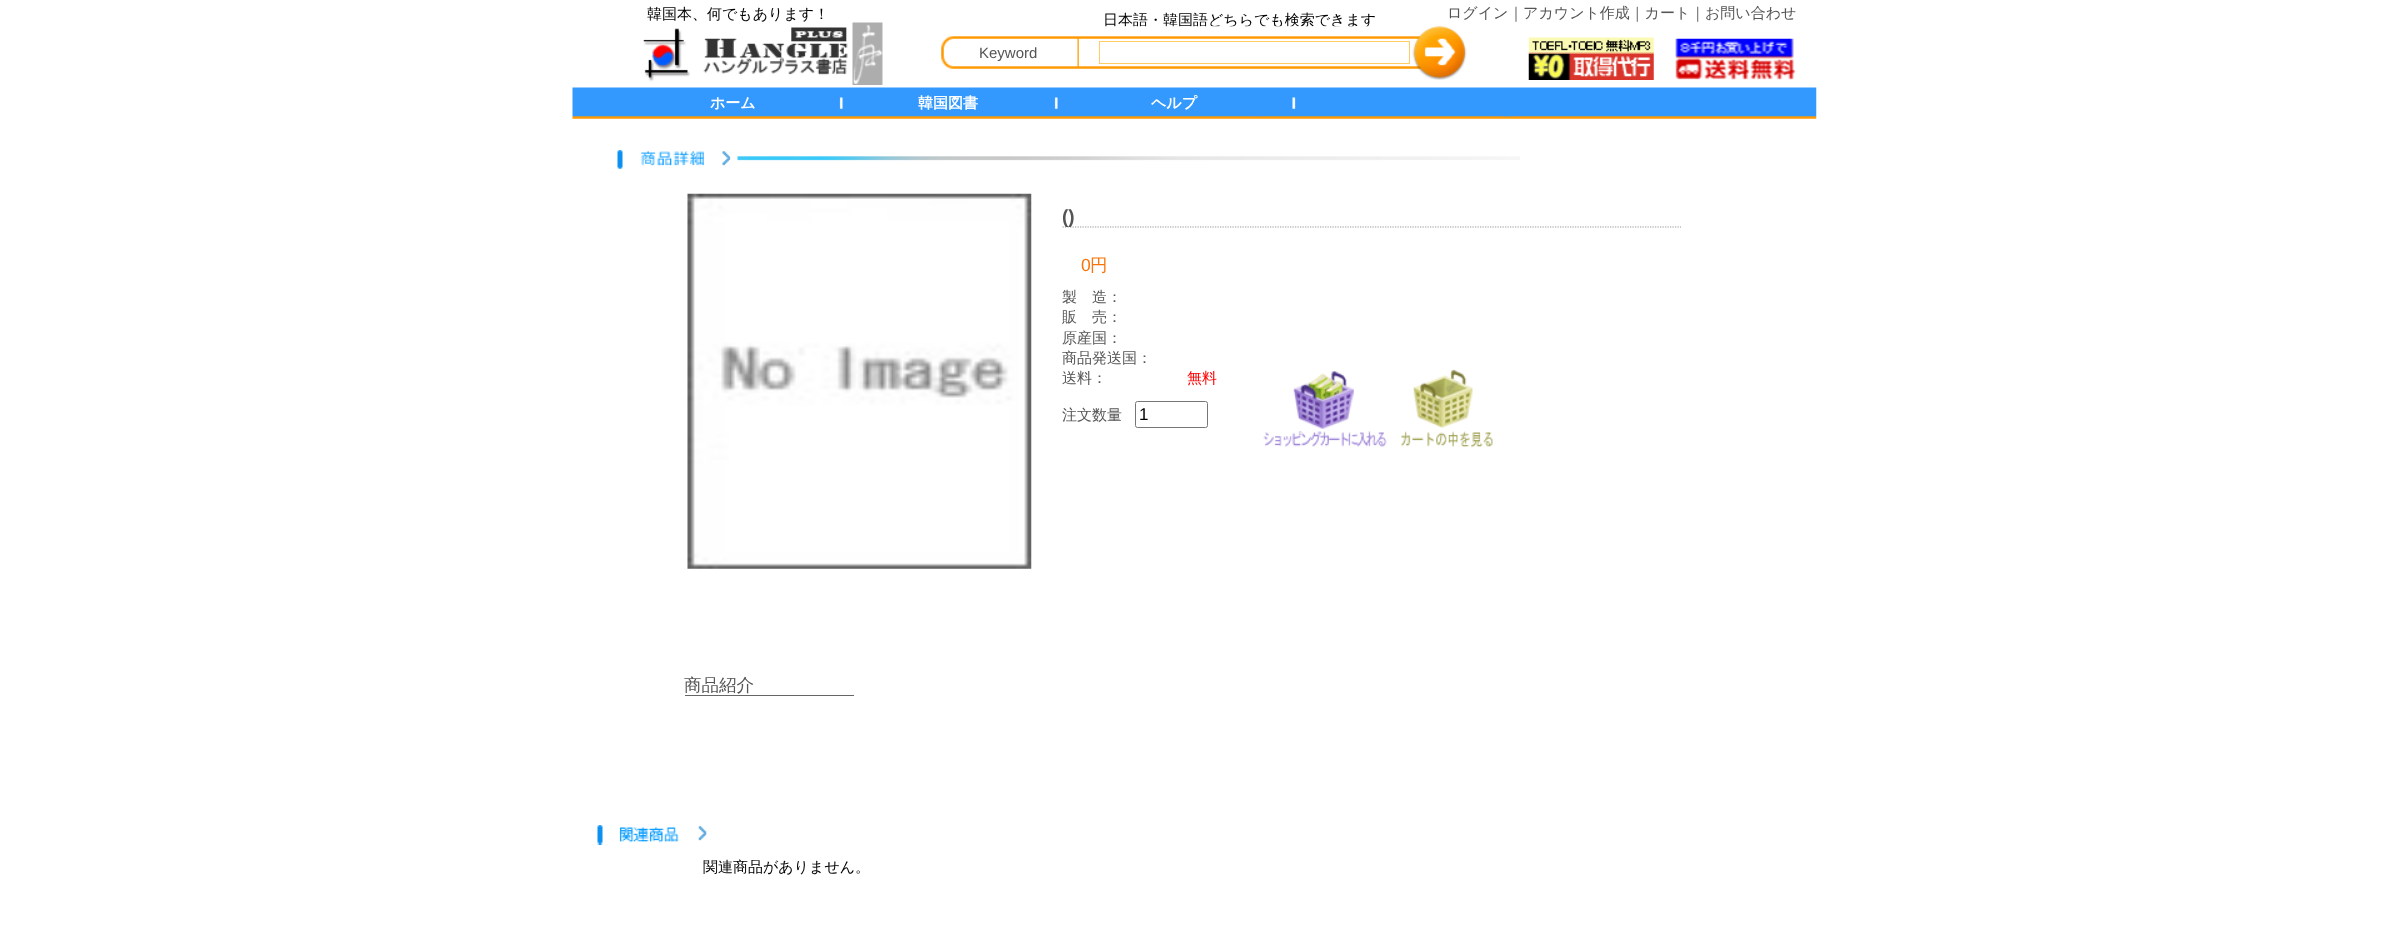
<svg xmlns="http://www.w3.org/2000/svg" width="2387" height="945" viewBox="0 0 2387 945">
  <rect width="100%" height="100%" fill="rgb(255,255,255)"/>
  <g font-family="WenQuanYi Zen Hei" font-size="15" font-weight="500" fill="rgb(0,0,0)">
    <text x="647" y="19">韓国本、何でもあります！</text>
    <text x="1103" y="25">日本語・韓国語どちらでも検索できます</text>
  </g>
  <text x="1447" y="18" font-family="WenQuanYi Zen Hei" font-size="15" font-weight="500" fill="rgb(85,85,85)">ログイン｜アカウント作成｜カート｜お問い合わせ</text>
  <image x="643" y="22" width="240" height="63" href="pic1.png"/>
  <image x="941" y="26" width="526" height="54" href="pic2.png"/>
  <text x="979" y="58" font-family="Liberation Sans" font-size="15" fill="rgb(85,85,85)">Keyword</text>
  <rect x="1099.5" y="41.5" width="310" height="22" fill="none" stroke="rgb(255,204,102)"/>
  <image x="1412" y="26" width="55" height="29" href="pic3.png"/>
  <image x="1528" y="37" width="126" height="43" href="pic4.png"/>
  <image x="1675" y="38" width="121" height="42" href="pic5.png"/>
  <image x="572" y="87" width="1245" height="32" href="pic6.png"/>
  <g font-family="WenQuanYi Zen Hei" font-size="15" font-weight="bold" fill="rgb(255,255,255)">
    <text x="710" y="108">ホーム</text>
    <text x="918" y="108">韓国図書</text>
    <text x="1151" y="108">ヘルプ</text>
  </g>
  <image x="617" y="150" width="903" height="19" href="pic7.png"/>
  <image x="687" y="193" width="345" height="376" href="pic8.png"/>
  <path d="M1062.5 227H1681" fill="none" stroke="rgb(153,153,153)" stroke-width="1.2" stroke-dasharray="1.25 1.25"/>
  <text x="1062" y="223" font-family="Liberation Sans" font-size="19" font-weight="bold" fill="rgb(85,85,85)">()</text>
  <text x="1081" y="271" font-family="Liberation Sans" font-size="17.5" fill="rgb(249,116,8)">0</text>
  <text x="1090" y="271" font-family="WenQuanYi Zen Hei" font-size="17.5" font-weight="500" fill="rgb(249,116,8)">円</text>
  <g font-family="WenQuanYi Zen Hei" font-size="15" font-weight="500" fill="rgb(85,85,85)">
    <text>
      <tspan x="1062" y="302">製　造：</tspan>
      <tspan x="1062" y="322">販　売：</tspan>
      <tspan x="1062" y="343">原産国：</tspan>
      <tspan x="1062" y="363">商品発送国：</tspan>
      <tspan x="1062" y="383">送料：</tspan>
    </text>
  </g>
  <text x="1187" y="383" font-family="WenQuanYi Zen Hei" font-size="15" font-weight="500" fill="rgb(255,0,0)">無料</text>
  <text x="1062" y="420" font-family="WenQuanYi Zen Hei" font-size="15" font-weight="500" fill="rgb(85,85,85)">注文数量</text>
  <rect x="1135.5" y="401.5" width="72" height="26" rx="2" fill="none" stroke="rgb(118,118,118)"/>
  <text x="1139" y="420" font-family="Liberation Sans" font-size="17" fill="rgb(0,0,0)">1</text>
  <image x="1263" y="371" width="124" height="76" href="pic9.png"/>
  <image x="1401" y="369" width="92" height="79" href="pic10.png"/>
  <rect x="685" y="695" width="169" height="1" fill="rgb(102,102,102)"/>
  <text x="684" y="691" font-family="WenQuanYi Zen Hei" font-size="17.5" font-weight="500" fill="rgb(85,85,85)">商品紹介</text>
  <image x="597" y="825" width="110" height="20" href="pic11.png"/>
  <text x="703" y="872" font-family="WenQuanYi Zen Hei" font-size="15" font-weight="500" fill="rgb(0,0,0)">関連商品がありません。</text>
</svg>
